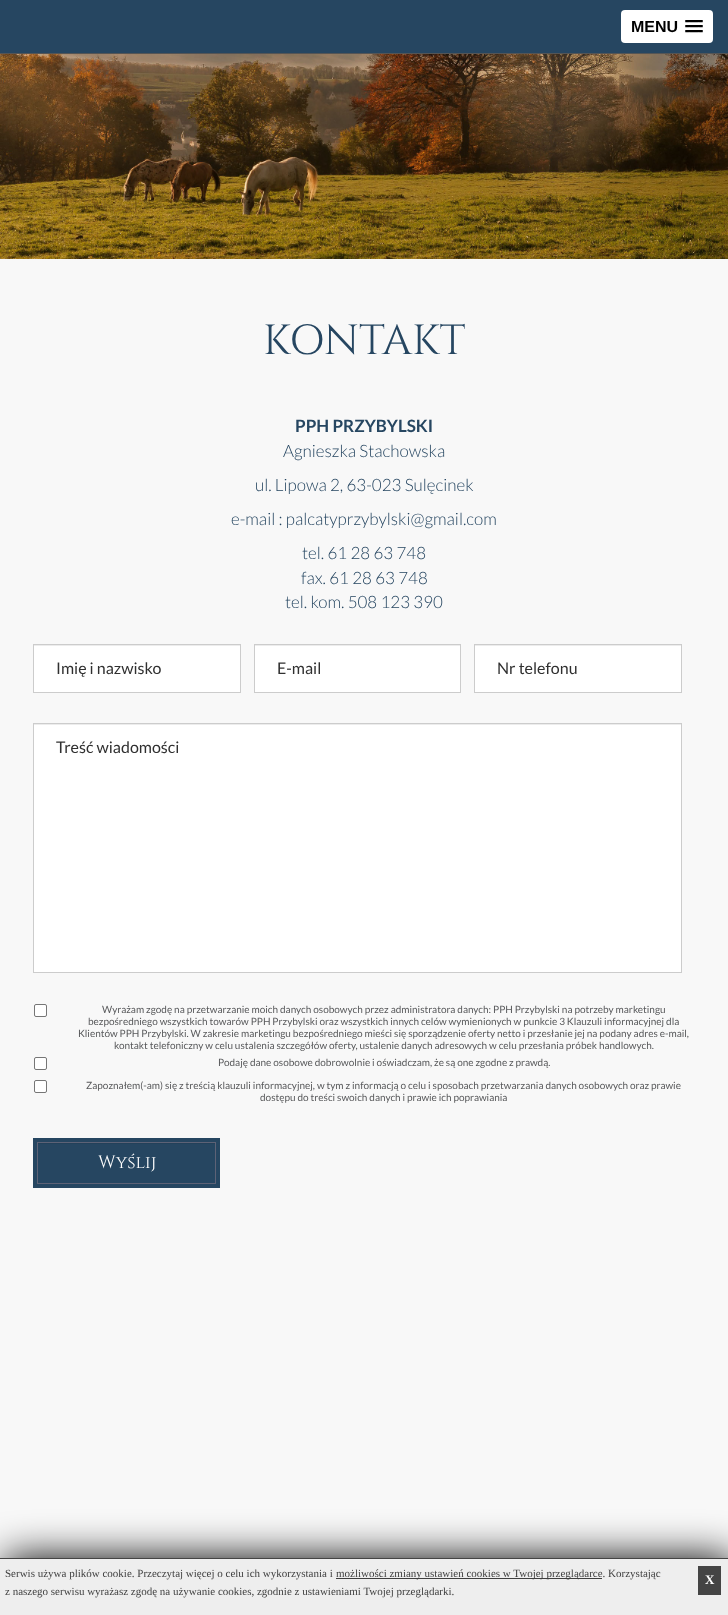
<svg xmlns="http://www.w3.org/2000/svg" width="728" height="1615" viewBox="0 0 728 1615">
  <rect width="100%" height="100%" fill="rgb(85,85,85)"/>
  <rect x="0" y="0" width="728" height="53" fill="rgb(38,70,97)"/>
  <rect x="621" y="10" width="92" height="33" rx="4" fill="rgb(255,255,255)"/>
  <text x="631" y="32" font-family="Liberation Sans" font-size="16" font-weight="bold" fill="rgb(0,0,0)">MENU</text>
  <path d="M685 21.5C684 23.5 688.5 23 688.5 23H699.5C699.5 23 704 23.5 703 21.5C702 22.5 695.5 22 694 22C692.5 22 686 22.5 685 21.5Z" fill="rgb(191,191,191)"/>
  <rect x="685" y="20" width="18" height="2" rx="1" fill="rgb(0,0,0)"/>
  <path d="M685 26.5C684 28.5 688.5 28 688.5 28H699.5C699.5 28 704 28.5 703 26.5C702 27.5 695.5 27 694 27C692.5 27 686 27.5 685 26.5Z" fill="rgb(191,191,191)"/>
  <rect x="685" y="25" width="18" height="2" rx="1" fill="rgb(0,0,0)"/>
  <path d="M685 31.5C684 33.5 688.5 33 688.5 33H699.5C699.5 33 704 33.5 703 31.5C702 32.5 695.5 32 694 32C692.5 32 686 32.5 685 31.5Z" fill="rgb(191,191,191)"/>
  <rect x="685" y="30" width="18" height="2" rx="1" fill="rgb(0,0,0)"/>
  <image x="0" y="54" width="728" height="205" href="pic1.png"/>
  <rect x="0" y="259" width="728" height="1299" fill="rgb(248,248,248)"/>
  <text x="263" y="354" font-family="Cinzel" font-size="42" fill="rgb(38,70,97)">KONTAKT</text>
  <text x="295" y="432" font-family="Lato" font-size="17" font-weight="bold" fill="rgb(38,70,97)">PPH PRZYBYLSKI</text>
  <g font-family="Lato" font-size="17" font-weight="300" fill="rgb(38,70,97)">
    <text x="283" y="457">Agnieszka Stachowska</text>
    <text x="255" y="491">ul. Lipowa 2, 63-023 Sulęcinek</text>
    <text x="231" y="525">e-mail : palcatyprzybylski@gmail.com</text>
    <text x="302" y="559">tel. 61 28 63 748</text>
    <text x="301" y="584">fax. 61 28 63 748</text>
    <text x="285" y="608">tel. kom. 508 123 390</text>
  </g>
  <rect x="34" y="646" width="206" height="46" fill="rgb(255,255,255)"/>
  <rect x="34" y="645" width="206" height="1" fill="rgb(236,236,236)"/>
  <rect x="33.5" y="644.5" width="207" height="48" fill="none" stroke="rgb(204,204,204)"/>
  <text x="56" y="674" font-family="Lato" font-size="16" fill="rgb(48,48,48)">Imię i nazwisko</text>
  <rect x="255" y="646" width="205" height="46" fill="rgb(255,255,255)"/>
  <rect x="255" y="645" width="205" height="1" fill="rgb(236,236,236)"/>
  <rect x="254.5" y="644.5" width="206" height="48" fill="none" stroke="rgb(204,204,204)"/>
  <text x="277" y="674" font-family="Lato" font-size="16" fill="rgb(48,48,48)">E-mail</text>
  <rect x="475" y="646" width="206" height="46" fill="rgb(255,255,255)"/>
  <rect x="475" y="645" width="206" height="1" fill="rgb(236,236,236)"/>
  <rect x="474.5" y="644.5" width="207" height="48" fill="none" stroke="rgb(204,204,204)"/>
  <text x="497" y="674" font-family="Lato" font-size="16" fill="rgb(48,48,48)">Nr telefonu</text>
  <rect x="34" y="725" width="647" height="247" fill="rgb(255,255,255)"/>
  <rect x="34" y="724" width="647" height="1" fill="rgb(236,236,236)"/>
  <rect x="33.5" y="723.5" width="648" height="249" fill="none" stroke="rgb(204,204,204)"/>
  <text x="56" y="753" font-family="Lato" font-size="16" fill="rgb(48,48,48)">Treść wiadomości</text>
  <rect x="34.5" y="1004.5" width="12" height="12" rx="1.5" fill="rgb(255,255,255)" stroke="rgb(118,118,118)"/>
  <g font-family="Lato" font-size="10" fill="rgb(88,89,91)">
    <text x="102" y="1013">Wyrażam zgodę na przetwarzanie moich danych osobowych przez administratora danych: PPH Przybylski na potrzeby marketingu</text>
    <text x="88" y="1025">bezpośredniego wszystkich towarów PPH Przybylski oraz wszystkich innych celów wymienionych w punkcie 3 Klauzuli informacyjnej dla</text>
    <text x="78" y="1037">Klientów PPH Przybylski. W zakresie marketingu bezpośredniego mieści się sporządzenie oferty netto i przesłanie jej na podany adres e-mail,</text>
    <text x="114" y="1049">kontakt telefoniczny w celu ustalenia szczegółów oferty, ustalenie danych adresowych w celu przesłania próbek handlowych.</text>
  </g>
  <rect x="34.5" y="1057.5" width="12" height="12" rx="1.5" fill="rgb(255,255,255)" stroke="rgb(118,118,118)"/>
  <text x="218" y="1066" font-family="Lato" font-size="10" fill="rgb(88,89,91)">Podaję dane osobowe dobrowolnie i oświadczam, że są one zgodne z prawdą.</text>
  <rect x="34.5" y="1080.5" width="12" height="12" rx="1.5" fill="rgb(255,255,255)" stroke="rgb(118,118,118)"/>
  <g font-family="Lato" font-size="10" fill="rgb(88,89,91)">
    <text x="86" y="1089">Zapoznałem(-am) się z treścią klauzuli informacyjnej, w tym z informacją o celu i sposobach przetwarzania danych osobowych oraz prawie</text>
    <text x="260" y="1101">dostępu do treści swoich danych i prawie ich poprawiania</text>
  </g>
  <rect x="33" y="1138" width="187" height="50" fill="rgb(38,70,97)"/>
  <rect x="38" y="1143" width="177" height="1" fill="rgb(35,65,90)"/>
  <rect x="37.5" y="1142.5" width="178" height="41" fill="none" stroke="rgb(93,98,118)"/>
  <text x="98" y="1168" font-family="Cinzel" font-size="18" fill="rgb(255,255,255)">Wyślij</text>
  <rect x="5" y="1558" width="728" height="57" fill="rgb(0,0,0)" filter="blur(20px)"/>
  <rect x="0" y="1559" width="728" height="56" fill="rgb(238,238,238)"/>
  <rect x="0" y="1558" width="728" height="1" fill="rgb(68,68,68)"/>
  <text x="5" y="1577" font-family="Liberation Serif" font-size="11" fill="rgb(63,63,63)">Serwis używa plików cookie. Przeczytaj więcej o celu ich wykorzystania i</text>
  <rect x="336" y="1578" width="266" height="1" fill="rgb(63,63,63)"/>
  <g font-family="Liberation Serif" font-size="11" fill="rgb(63,63,63)">
    <text x="336" y="1577">możliwości zmiany ustawień cookies w Twojej przeglądarce. Korzystając</text>
    <text x="5" y="1595">z naszego serwisu wyrażasz zgodę na używanie cookies, zgodnie z ustawieniami Twojej przeglądarki.</text>
  </g>
  <rect x="698" y="1566" width="23" height="29" fill="rgb(68,68,68)"/>
  <text x="705" y="1584" font-family="Liberation Serif" font-size="13" font-weight="bold" fill="rgb(255,255,255)">X</text>
</svg>
